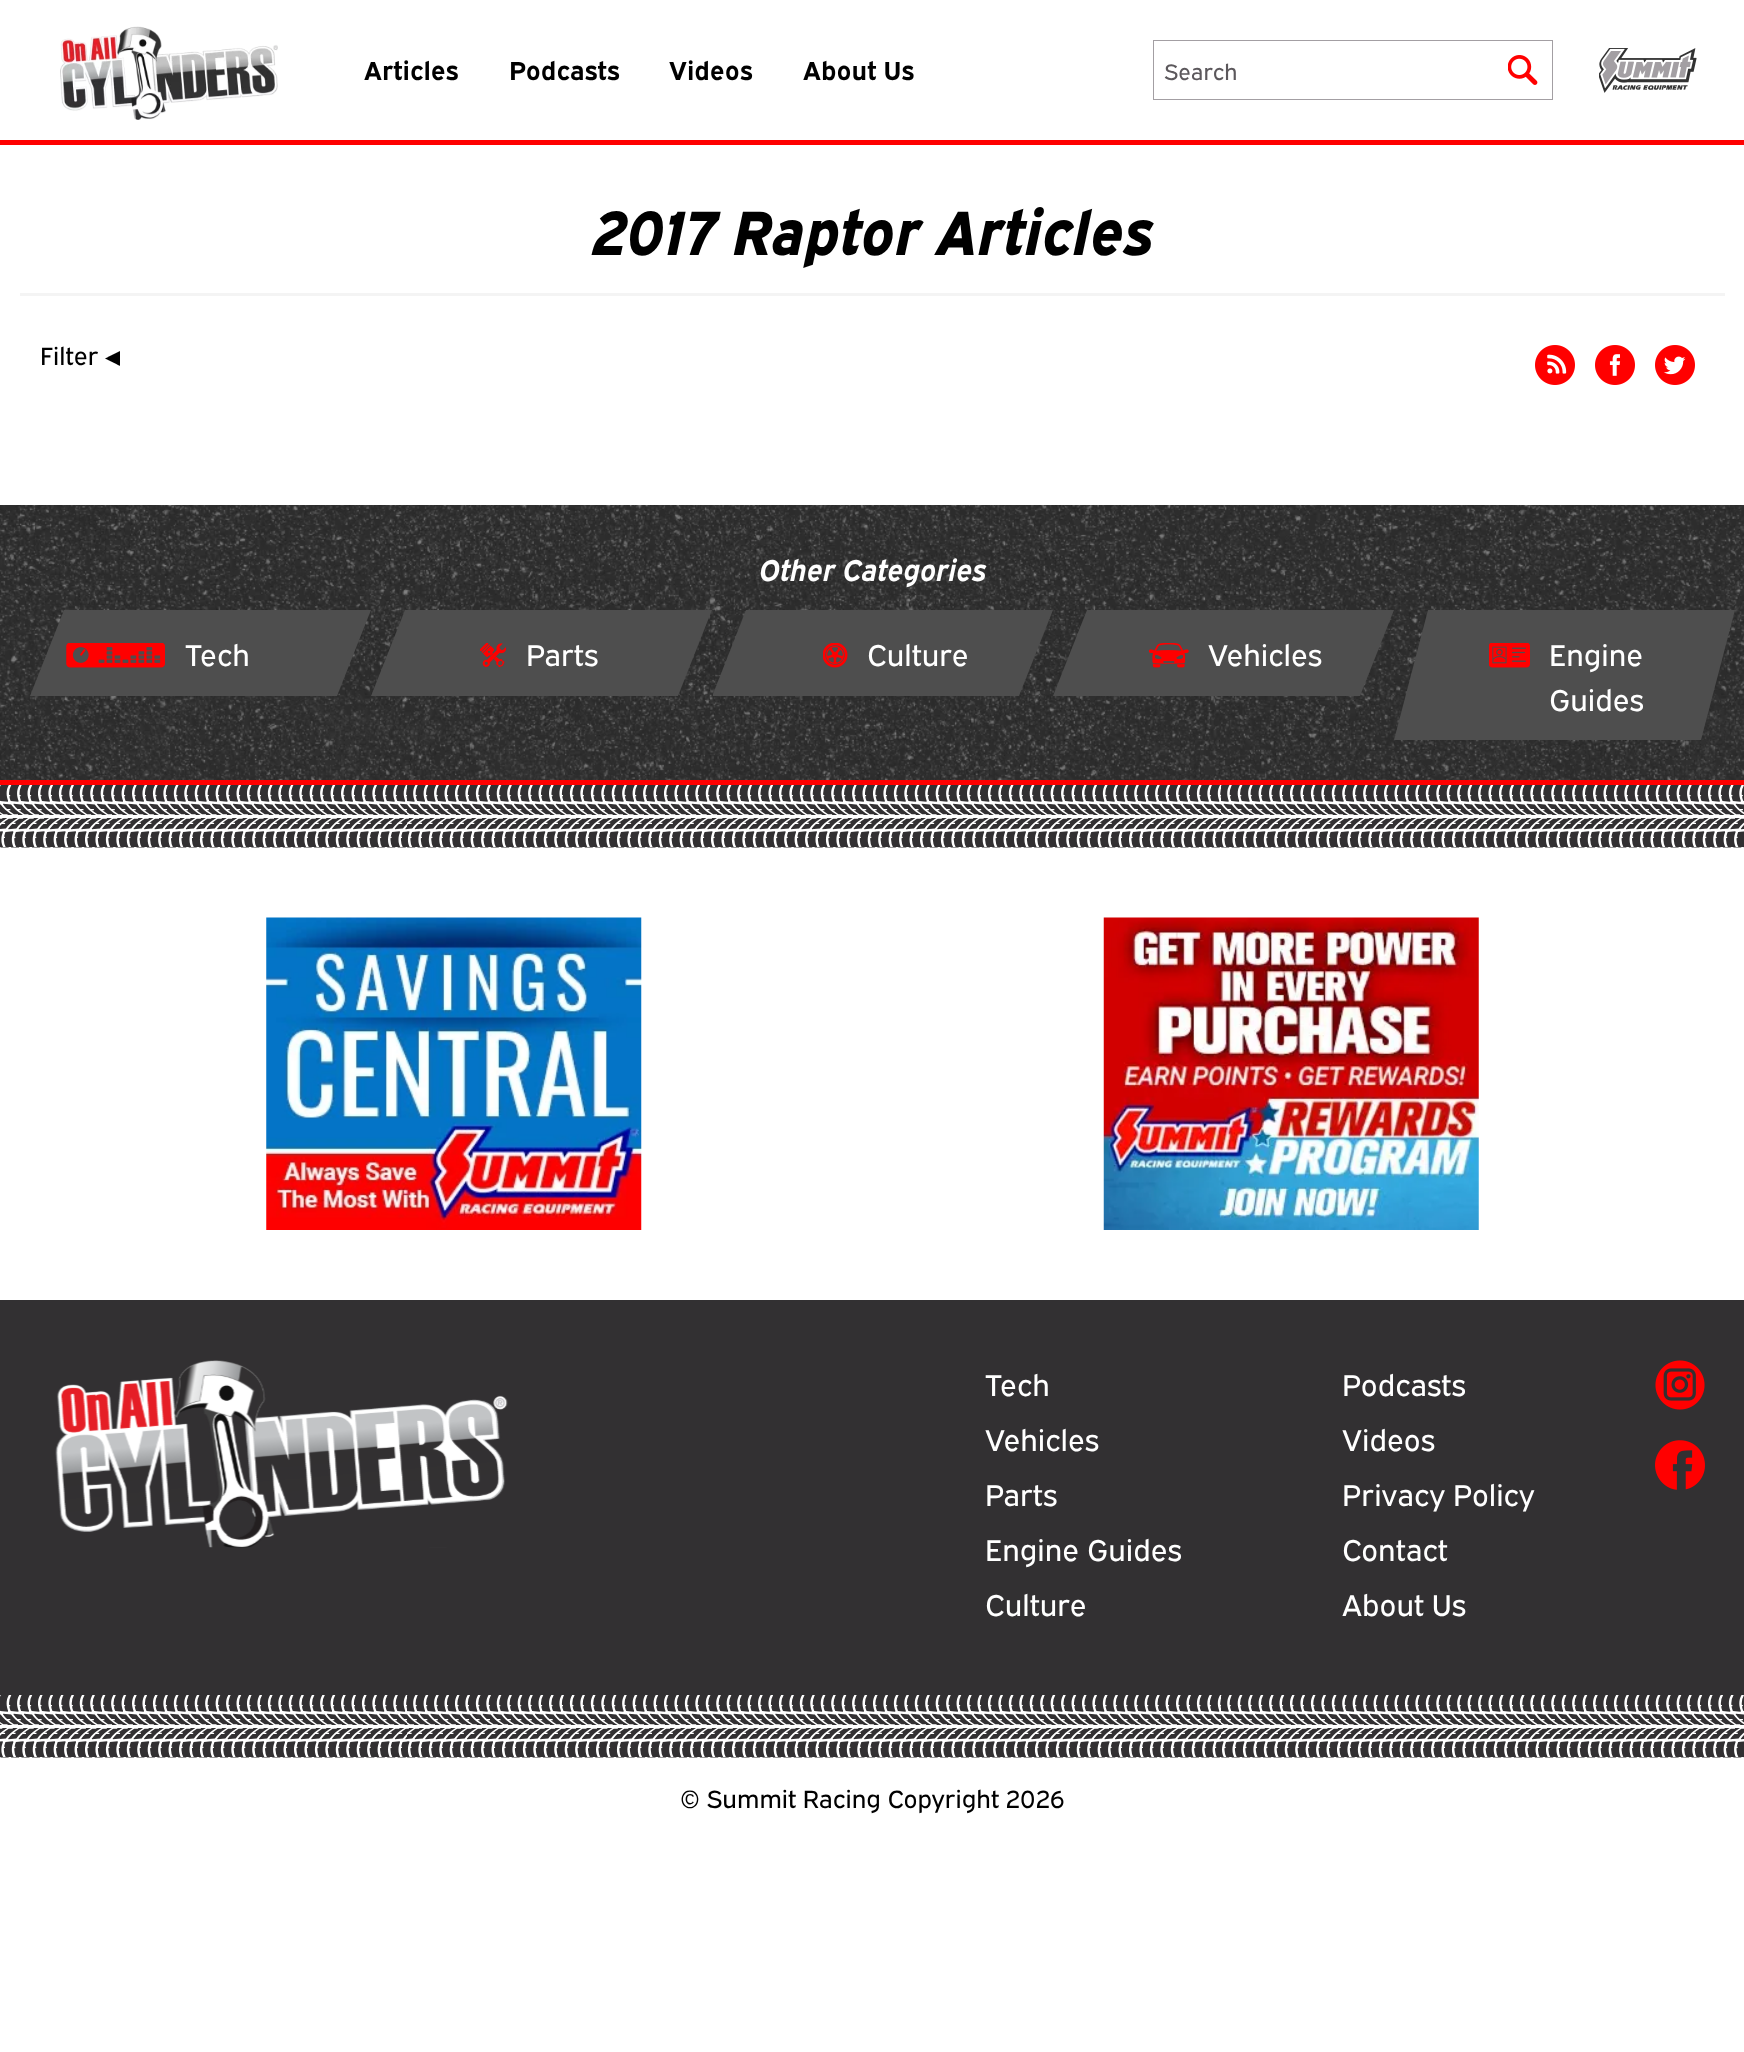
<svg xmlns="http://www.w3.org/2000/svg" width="1744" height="2052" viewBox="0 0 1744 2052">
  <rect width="100%" height="100%" fill="rgb(255,255,255)"/>
  <rect x="0" y="140" width="1744" height="5" fill="rgb(255,0,0)"/>
  <image x="60" y="26" width="218" height="94" href="pic1.png"/>
  <g font-family="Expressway" font-size="26" font-weight="bold" fill="rgb(0,0,0)">
    <text x="364" y="80">Articles</text>
    <text x="509" y="80">Podcasts</text>
    <text x="669" y="80">Videos</text>
    <text x="803" y="80">About Us</text>
  </g>
  <rect x="1153.5" y="40.5" width="399" height="59" fill="none" stroke="rgb(163,159,163)"/>
  <text x="1164" y="80" font-family="Expressway" font-size="22.5" fill="rgb(92,88,92)">Search</text>
  <image x="1508" y="55" width="30" height="30" href="pic2.png"/>
  <image x="1599" y="48" width="98" height="45" href="pic3.png"/>
  <text x="592" y="255" font-family="Expressway" font-size="62.5" font-weight="800" font-style="italic" fill="rgb(0,0,0)">2017 Raptor Articles</text>
  <rect x="20" y="293" width="1705" height="3" fill="rgb(244,244,244)"/>
  <text x="40" y="365" font-family="Expressway" font-size="25" fill="rgb(0,0,0)">Filter</text>
  <text x="105" y="365" font-family="DejaVu Sans Mono" font-size="25" fill="rgb(0,0,0)">◀︎</text>
  <image x="1535" y="345" width="40" height="40" href="pic4.png"/>
  <image x="1595" y="345" width="40" height="40" href="pic5.png"/>
  <image x="1655" y="345" width="40" height="40" href="pic6.png"/>
  <image x="0" y="505" width="1744" height="275" href="pic7.png"/>
  <rect x="0" y="780" width="1744" height="5" fill="rgb(255,0,0)"/>
  <text x="759" y="581" font-family="Expressway" font-size="30" font-weight="bold" font-style="italic" fill="rgb(255,255,255)">Other Categories</text>
  <path d="M64 610H371L337 696H30Z" fill="rgb(78,78,78)"/>
  <image x="66" y="643" width="99" height="25" href="pic8.png"/>
  <text x="185" y="666" font-family="Expressway" font-size="30" fill="rgb(255,255,255)">Tech</text>
  <path d="M405 610L371 696H678L712 610Z" fill="rgb(78,78,78)"/>
  <image x="480" y="643" width="26" height="25" href="pic9.png"/>
  <text x="526" y="666" font-family="Expressway" font-size="30" fill="rgb(255,255,255)">Parts</text>
  <path d="M746 610L713 694V696H1019L1053 610Z" fill="rgb(78,78,78)"/>
  <image x="823" y="643" width="25" height="25" href="pic10.png"/>
  <text x="867" y="666" font-family="Expressway" font-size="30" fill="rgb(255,255,255)">Culture</text>
  <path d="M1087 610L1053 696H1360L1394 610Z" fill="rgb(78,78,78)"/>
  <image x="1149" y="643" width="40" height="25" href="pic11.png"/>
  <text x="1208" y="666" font-family="Expressway" font-size="30" fill="rgb(255,255,255)">Vehicles</text>
  <path d="M1428 610L1394 740H1701L1735 610Z" fill="rgb(78,78,78)"/>
  <image x="1489" y="643" width="41" height="25" href="pic12.png"/>
  <g font-family="Expressway" font-size="30" fill="rgb(255,255,255)">
    <text>
      <tspan x="1549" y="666">Engine</tspan>
      <tspan x="1549" y="711">Guides</tspan>
    </text>
  </g>
  <rect x="0" y="1300" width="1744" height="395" fill="rgb(50,48,50)"/>
  <image x="0" y="785" width="1744" height="63" href="pic13.png"/>
  <image x="266" y="917" width="376" height="313" href="pic14.png"/>
  <image x="1103" y="917" width="376" height="313" href="pic15.png"/>
  <image x="55" y="1360" width="453" height="188" href="pic16.png"/>
  <g font-family="Expressway" font-size="30" fill="rgb(255,255,255)">
    <text>
      <tspan x="985" y="1396">Tech</tspan>
      <tspan x="985" y="1451">Vehicles</tspan>
      <tspan x="985" y="1506">Parts</tspan>
      <tspan x="985" y="1561">Engine Guides</tspan>
      <tspan x="985" y="1616">Culture</tspan>
    </text>
    <text>
      <tspan x="1342" y="1396">Podcasts</tspan>
      <tspan x="1342" y="1451">Videos</tspan>
      <tspan x="1342" y="1506">Privacy Policy</tspan>
      <tspan x="1342" y="1561">Contact</tspan>
      <tspan x="1342" y="1616">About Us</tspan>
    </text>
  </g>
  <image x="1655" y="1360" width="50" height="50" href="pic17.png"/>
  <image x="1655" y="1440" width="50" height="50" href="pic18.png"/>
  <image x="0" y="1695" width="1744" height="63" href="pic13.png"/>
  <text x="680" y="1808" font-family="Expressway" font-size="25" fill="rgb(0,0,0)">© Summit Racing Copyright 2026</text>
</svg>
